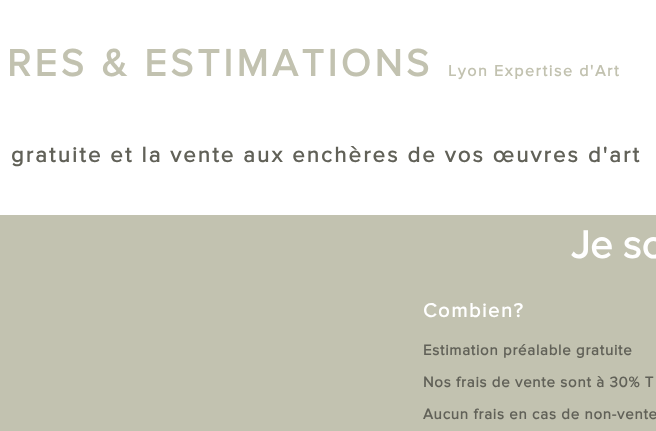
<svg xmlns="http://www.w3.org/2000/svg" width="656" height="431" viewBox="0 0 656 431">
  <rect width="100%" height="100%" fill="rgb(255,255,255)"/>
  <text x="7" y="76" font-family="'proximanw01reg'" font-size="39" font-weight="bold" letter-spacing="3.9" fill="rgb(194,194,176)">RES &amp; ESTIMATIONS</text>
  <text x="448" y="76" font-family="'proximanw01reg'" font-size="16" font-weight="bold" letter-spacing="1.6" fill="rgb(194,194,176)">Lyon Expertise d'Art</text>
  <text x="11" y="162" font-family="'proximanw01reg'" font-size="22" font-weight="bold" letter-spacing="2.2" fill="rgb(97,97,88)">gratuite et la vente aux enchères de vos œuvres d'art</text>
  <rect x="0" y="215" width="656" height="216" fill="rgb(194,194,176)"/>
  <text x="571" y="258" font-family="'proximanw01reg'" font-size="40" font-weight="bold" fill="rgb(255,255,255)">Je so</text>
  <text x="423" y="317" font-family="'proximanw01reg'" font-size="20" font-weight="bold" letter-spacing="1.6" fill="rgb(255,255,255)">Combien?</text>
  <g font-family="'proximanw01reg'" font-size="15" font-weight="bold" letter-spacing="0.75" fill="rgb(97,97,88)">
    <text x="423" y="355">Estimation préalable gratuite</text>
    <text x="423" y="387">Nos frais de vente sont à 30% T</text>
    <text x="423" y="419">Aucun frais en cas de non-vente</text>
  </g>
</svg>
